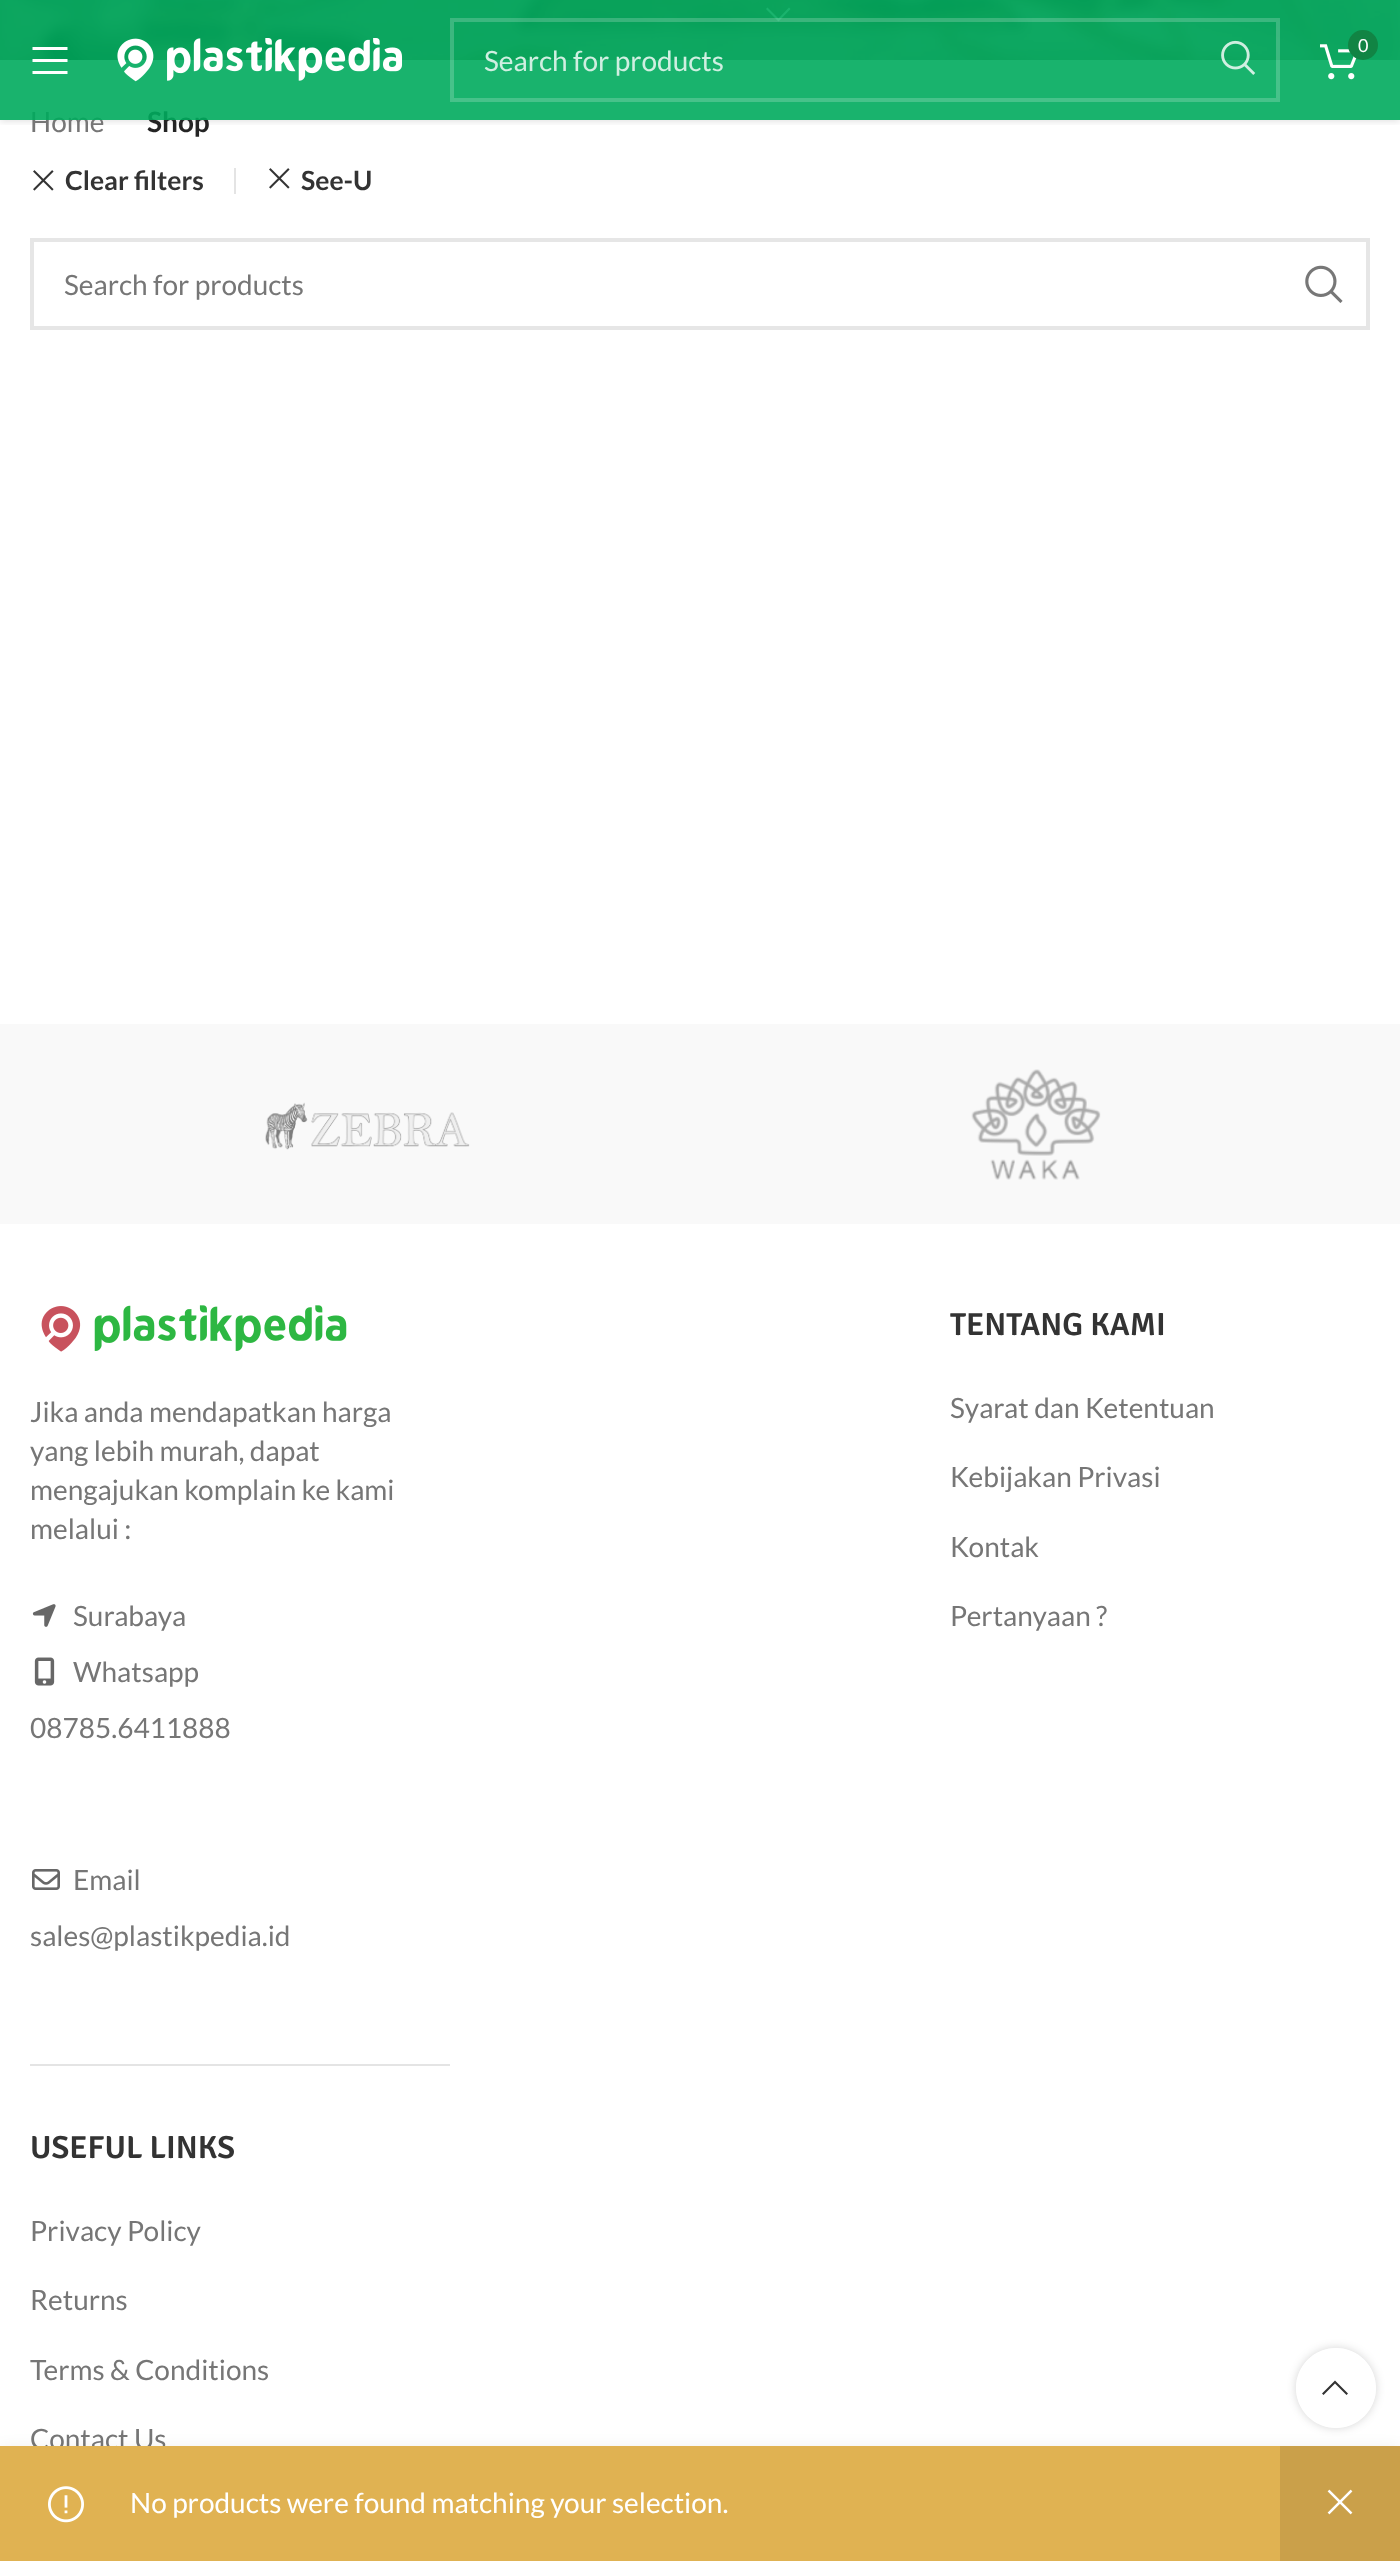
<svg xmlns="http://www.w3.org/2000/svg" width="1400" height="2561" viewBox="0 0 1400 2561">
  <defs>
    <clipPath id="clip1"><rect x="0" y="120" width="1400" height="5"/></clipPath>
    <clipPath id="clip2"><path d="M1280 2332H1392V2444H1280ZM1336 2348C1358 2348 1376 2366 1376 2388C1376 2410 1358 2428 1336 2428C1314 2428 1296 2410 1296 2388C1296 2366 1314 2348 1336 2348Z" clip-rule="evenodd"/></clipPath>
  </defs>
  <rect width="100%" height="100%" fill="rgb(255,255,255)"/>
  <image x="0" y="0" width="1400" height="60" href="pic4.png"/>
  <path d="M789 7.5L778.5 18.5L767.5 7.5L766 9L778.5 21.5L790.5 9Z" fill="rgb(255,255,255)"/>
  <g clip-path="url(#clip1)">
    <rect x="0" y="2" width="1400" height="120" fill="rgba(0,0,0,0.1)" filter="blur(3px)"/>
  </g>
  <text x="30" y="132" font-family="Lato" font-size="28" fill="rgb(118,118,118)">Home</text>
  <text x="147" y="132" font-family="Lato" font-size="28" font-weight="bold" fill="rgb(36,36,36)">Shop</text>
  <rect x="0" y="0" width="1400" height="120" fill="rgba(0,171,93,0.9)"/>
  <path d="M32.5 50H67.5V47H32.5ZM32.5 62H67.5V59H32.5ZM32.5 74H67.5V71H32.5Z" fill="rgb(255,255,255)"/>
  <image x="117" y="38" width="286" height="44" href="pic1.png"/>
  <image x="1320" y="44" width="37" height="36" href="pic2.png"/>
  <circle cx="1363" cy="45" r="15" fill="rgb(17,132,68)"/>
  <text x="1358" y="52" font-family="Lato" font-size="18" fill="rgb(255,255,255)">0</text>
  <rect x="452" y="20" width="826" height="80" fill="none" stroke="rgba(255,255,255,0.2)" stroke-width="4"/>
  <text x="484" y="71" font-family="Lato" font-size="28" fill="rgb(208,239,225)">Search for products</text>
  <image x="1221" y="40" width="35" height="35" href="pic3.png"/>
  <rect x="234" y="168" width="2" height="26" fill="rgb(228,228,228)"/>
  <image x="33" y="170" width="21" height="21" href="pic5.png"/>
  <text x="65" y="190" font-family="Lato" font-size="26.5" font-weight="bold" fill="rgb(51,51,51)">Clear filters</text>
  <image x="269" y="168" width="21" height="21" href="pic5.png"/>
  <text x="301" y="190" font-family="Lato" font-size="26.5" font-weight="bold" fill="rgb(51,51,51)">See-U</text>
  <rect x="32" y="240" width="1336" height="88" fill="none" stroke="rgb(230,230,230)" stroke-width="4"/>
  <text x="64" y="295" font-family="Lato" font-size="28" fill="rgb(118,118,118)">Search for products</text>
  <image x="1305" y="265" width="38" height="38" href="pic6.png"/>
  <text x="30" y="2449" font-family="Lato" font-size="28" fill="rgb(118,118,118)">Contact Us</text>
  <g clip-path="url(#clip2)">
    <rect x="1296" y="2348" width="80" height="80" rx="40" fill="rgba(0,0,0,0.17)" filter="blur(5px)"/>
  </g>
  <circle cx="1336" cy="2388" r="40" fill="rgba(255,255,255,0.9)"/>
  <rect x="0" y="2452" width="1400" height="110" fill="rgba(0,0,0,0.12)" filter="blur(9px)"/>
  <rect x="0" y="2446" width="1280" height="115" fill="rgb(224,178,82)"/>
  <image x="48" y="2486" width="36" height="37" href="pic7.png"/>
  <text x="130" y="2513" font-family="Lato" font-size="28" fill="rgb(255,255,255)">No products were found matching your selection.</text>
  <rect x="1280" y="2446" width="120" height="115" fill="rgb(202,160,74)"/>
  <image x="1327" y="2489" width="26" height="26" href="pic8.png"/>
  <rect x="0" y="1024" width="1400" height="200" fill="rgb(249,249,249)"/>
  <image x="265" y="1102" width="205" height="48" href="pic9.png"/>
  <image x="971" y="1069" width="130" height="111" href="pic10.png"/>
  <rect x="30" y="2064" width="420" height="2" fill="rgb(228,228,228)"/>
  <image x="41" y="1305" width="306" height="47" href="pic11.png"/>
  <g font-family="Lato" font-size="28" fill="rgb(118,118,118)">
    <text>
      <tspan x="30" y="1422">Jika anda mendapatkan harga</tspan>
      <tspan x="30" y="1461">yang lebih murah, dapat</tspan>
      <tspan x="30" y="1500">mengajukan komplain ke kami</tspan>
      <tspan x="30" y="1539">melalui :</tspan>
    </text>
  </g>
  <image x="32" y="1604" width="24" height="23" href="pic12.png"/>
  <text x="73" y="1626" font-family="Lato" font-size="28" fill="rgb(118,118,118)">Surabaya</text>
  <image x="34" y="1657" width="21" height="29" href="pic13.png"/>
  <g font-family="Lato" font-size="28" fill="rgb(118,118,118)">
    <text x="73" y="1682">Whatsapp</text>
    <text x="30" y="1738">08785.6411888</text>
  </g>
  <image x="32" y="1869" width="28" height="21" href="pic14.png"/>
  <g font-family="Lato" font-size="28" fill="rgb(118,118,118)">
    <text x="73" y="1890">Email</text>
    <text x="30" y="1946">sales@plastikpedia.id</text>
  </g>
  <text x="30" y="2158" font-family="Signika" font-size="32" font-weight="600" fill="rgb(51,51,51)">USEFUL LINKS</text>
  <g font-family="Lato" font-size="28" fill="rgb(118,118,118)">
    <text x="30" y="2241">Privacy Policy</text>
    <text x="30" y="2310">Returns</text>
    <text x="30" y="2380">Terms &amp; Conditions</text>
  </g>
  <text x="950" y="1335" font-family="Signika" font-size="32" font-weight="600" fill="rgb(51,51,51)">TENTANG KAMI</text>
  <g font-family="Lato" font-size="28" fill="rgb(118,118,118)">
    <text x="950" y="1418">Syarat dan Ketentuan</text>
    <text x="950" y="1487">Kebijakan Privasi</text>
    <text x="950" y="1557">Kontak</text>
    <text x="950" y="1626">Pertanyaan ?</text>
  </g>
  <path d="M1346.5 2395L1348 2393.5L1335 2380.5L1322 2393.5L1323.5 2395L1335 2383.5Z" fill="rgb(51,51,51)"/>
</svg>
